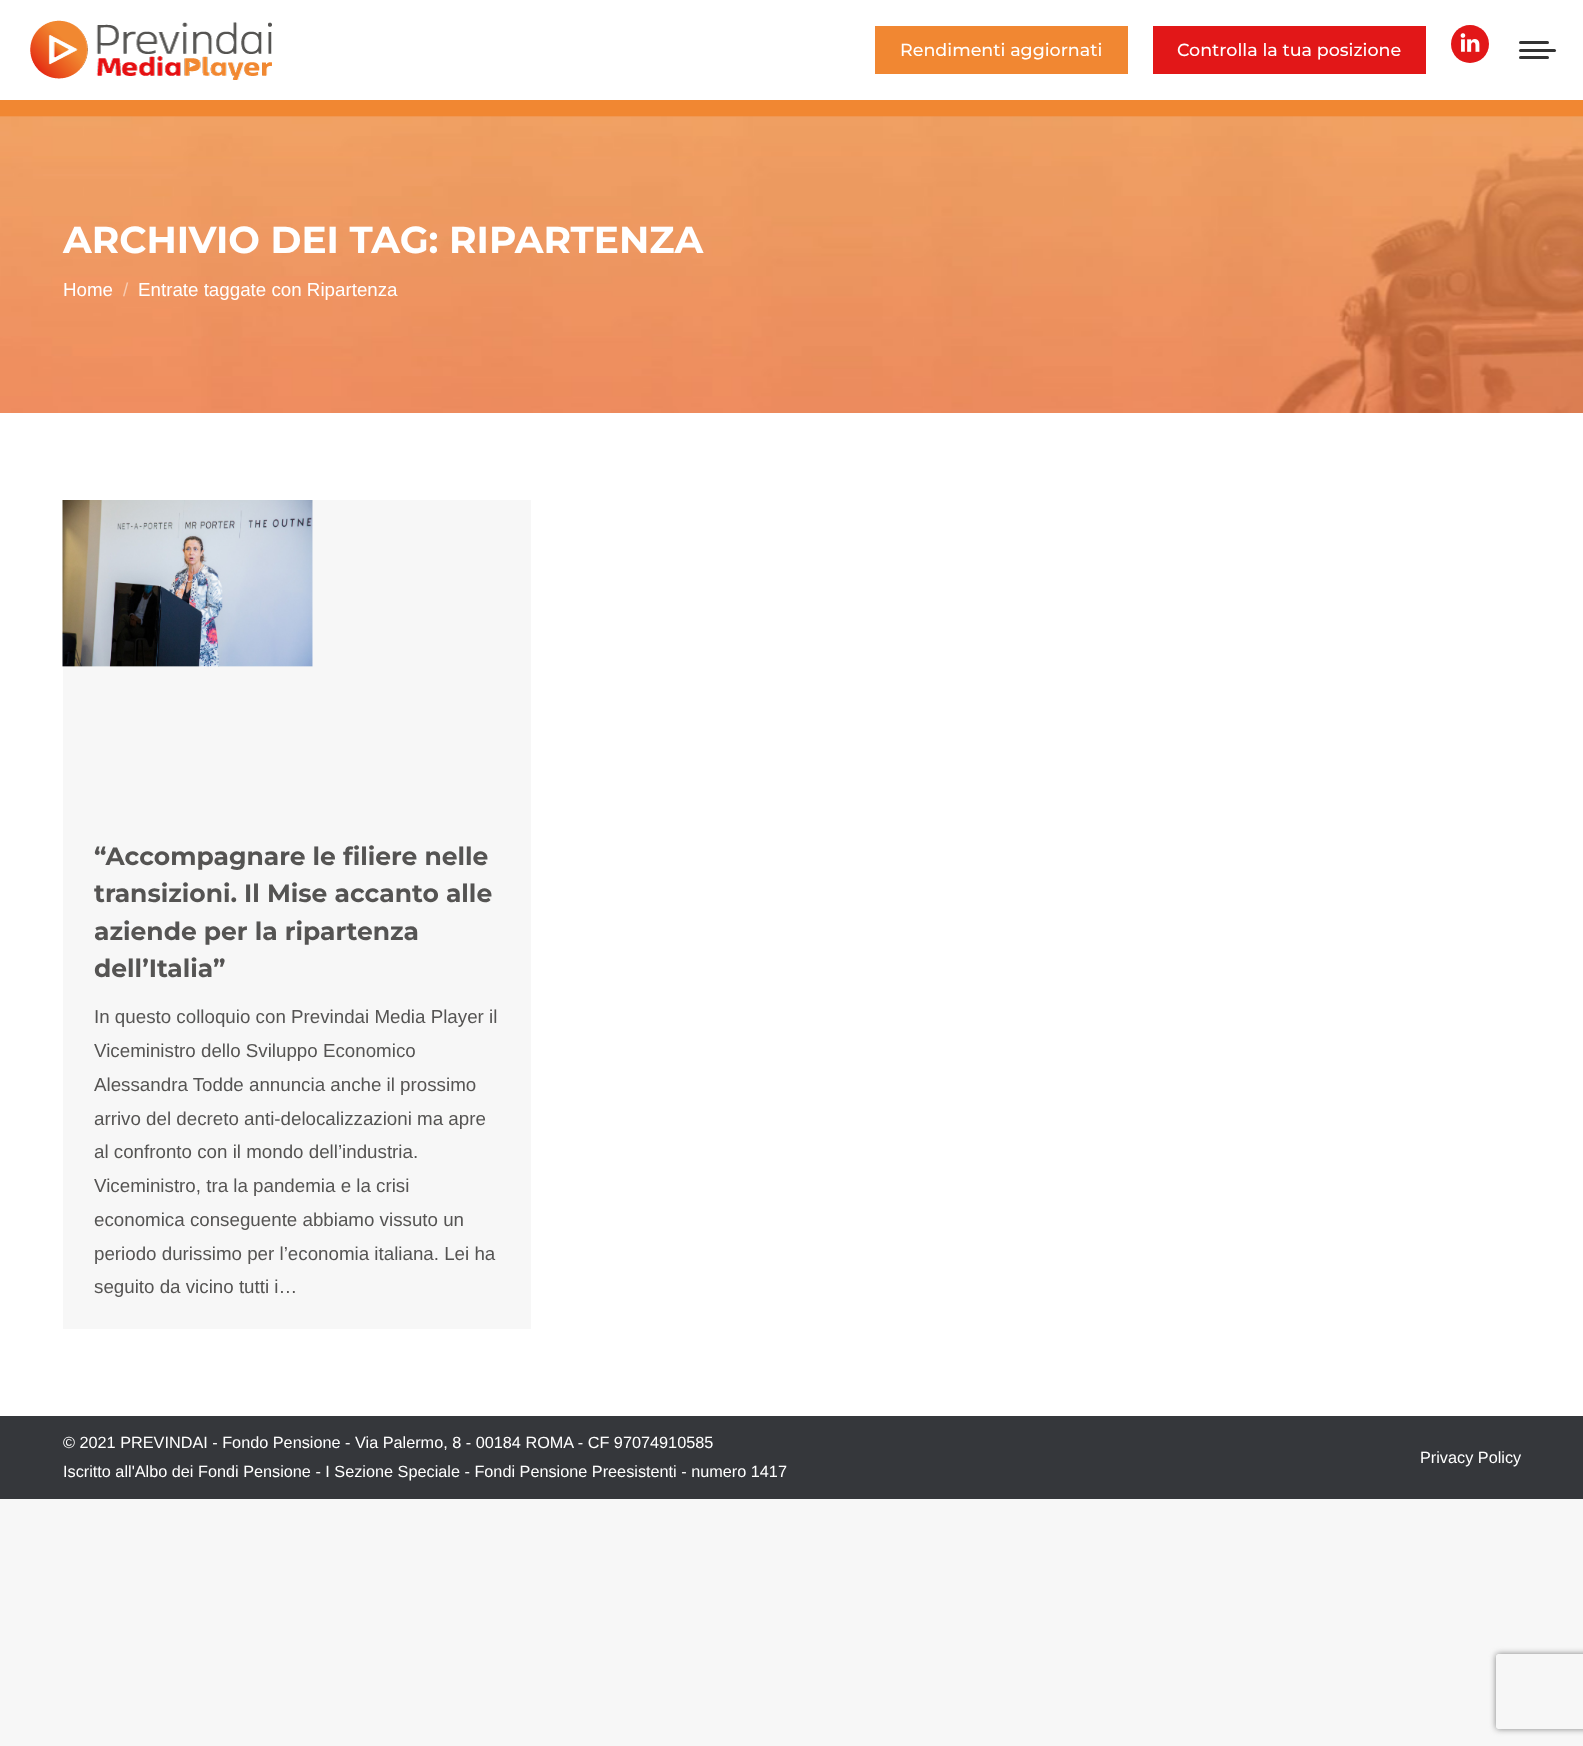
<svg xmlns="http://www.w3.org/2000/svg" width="1583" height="1746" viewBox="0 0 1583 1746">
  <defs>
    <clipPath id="clip1"><path d="M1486 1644H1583V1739H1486ZM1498.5 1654H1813.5C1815 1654 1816 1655 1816 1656.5V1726.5C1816 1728 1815 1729 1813.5 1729H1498.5C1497 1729 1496 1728 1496 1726.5V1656.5C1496 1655 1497 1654 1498.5 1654Z" clip-rule="evenodd"/></clipPath>
  </defs>
  <rect width="100%" height="100%" fill="rgb(247,247,247)"/>
  <rect x="0" y="0" width="1583" height="1416" fill="rgb(255,255,255)"/>
  <image x="30" y="20" width="242" height="60" href="pic1.png"/>
  <rect x="875" y="26" width="253" height="48" fill="rgb(241,135,50)"/>
  <text x="900" y="56" font-family="Montserrat" font-size="17.5" font-weight="500" fill="rgb(255,255,255)">Rendimenti aggiornati</text>
  <rect x="1153" y="26" width="273" height="48" fill="rgb(226,23,24)"/>
  <text x="1177" y="56" font-family="Montserrat" font-size="17.5" font-weight="500" fill="rgb(255,255,255)">Controlla la tua posizione</text>
  <circle cx="1470" cy="44" r="19" fill="rgb(226,23,24)"/>
  <image x="1460" y="33" width="20" height="19" href="pic2.png"/>
  <rect x="1519" y="41" width="30" height="3" rx="1.5" fill="rgb(51,51,51)"/>
  <rect x="1519" y="49" width="37" height="3" rx="1.5" fill="rgb(51,51,51)"/>
  <rect x="1519" y="56" width="30" height="3" rx="1.5" fill="rgb(51,51,51)"/>
  <rect x="0" y="100" width="1583" height="17" fill="rgb(241,135,50)"/>
  <image x="0" y="116" width="1583" height="297" href="pic3.png"/>
  <text x="63" y="253" font-family="Montserrat" font-size="37.5" font-weight="bold" fill="rgb(255,255,255)">ARCHIVIO DEI TAG: RIPARTENZA</text>
  <text x="63" y="296" font-family="Liberation Sans" font-size="18.75" fill="rgb(255,255,255)">Home</text>
  <text x="123" y="296" font-family="Liberation Sans" font-size="18.75" fill="rgb(248,203,176)">/</text>
  <text x="138" y="296" font-family="Liberation Sans" font-size="18.75" fill="rgb(255,255,255)">Entrate taggate con Ripartenza</text>
  <rect x="63" y="500" width="468" height="829" fill="rgb(247,247,247)"/>
  <image x="62" y="500" width="251" height="167" href="pic4.png"/>
  <g font-family="Montserrat" font-size="25" font-weight="bold" fill="rgb(85,84,83)">
    <text>
      <tspan x="94" y="865">“Accompagnare le filiere nelle</tspan>
      <tspan x="94" y="902">transizioni. Il Mise accanto alle</tspan>
      <tspan x="94" y="940">aziende per la ripartenza</tspan>
      <tspan x="94" y="977">dell’Italia”</tspan>
    </text>
  </g>
  <g font-family="Liberation Sans" font-size="18.75" fill="rgb(85,84,83)">
    <text>
      <tspan x="94" y="1023">In questo colloquio con Previndai Media Player il</tspan>
      <tspan x="94" y="1057">Viceministro dello Sviluppo Economico</tspan>
      <tspan x="94" y="1091">Alessandra Todde annuncia anche il prossimo</tspan>
      <tspan x="94" y="1125">arrivo del decreto anti-delocalizzazioni ma apre</tspan>
      <tspan x="94" y="1158">al confronto con il mondo dell’industria.</tspan>
      <tspan x="94" y="1192">Viceministro, tra la pandemia e la crisi</tspan>
      <tspan x="94" y="1226">economica conseguente abbiamo vissuto un</tspan>
      <tspan x="94" y="1260">periodo durissimo per l’economia italiana. Lei ha</tspan>
      <tspan x="94" y="1293">seguito da vicino tutti i…</tspan>
    </text>
  </g>
  <rect x="0" y="1416" width="1583" height="83" fill="rgb(53,55,59)"/>
  <g font-family="Liberation Sans" font-size="16.25" fill="rgb(255,255,255)">
    <text>
      <tspan x="63" y="1448">© 2021 PREVINDAI - Fondo Pensione - Via Palermo, 8 - 00184 ROMA - CF 97074910585</tspan>
      <tspan x="63" y="1477">Iscritto all'Albo dei Fondi Pensione - I Sezione Speciale - Fondi Pensione Preesistenti - numero 1417</tspan>
    </text>
    <text x="1420" y="1463">Privacy Policy</text>
  </g>
  <g clip-path="url(#clip1)">
    <rect x="1496" y="1654" width="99" height="75" rx="2.5" fill="rgb(128,128,128)" filter="blur(3px)"/>
  </g>
</svg>
